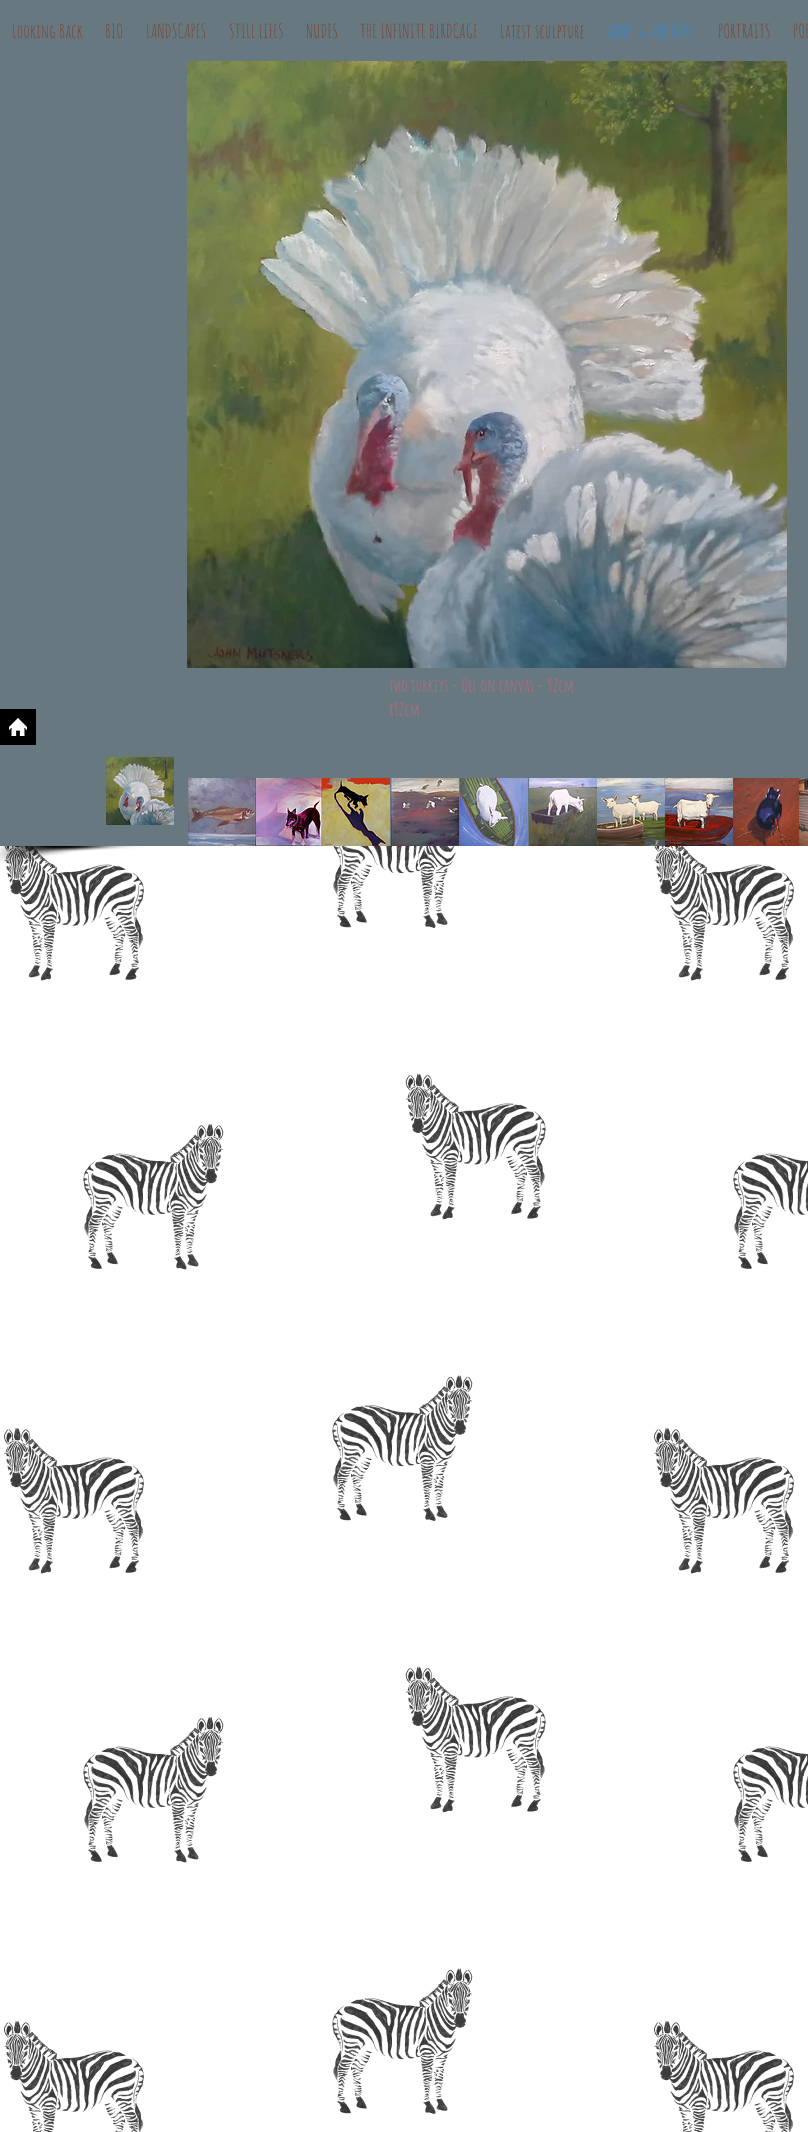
<svg xmlns="http://www.w3.org/2000/svg" width="808" height="2132" viewBox="0 0 808 2132">
  <rect width="100%" height="100%" fill="rgb(255,255,255)"/>
  <rect x="0" y="0" width="808" height="846" fill="rgb(103,120,128)"/>
  <g font-family="Amatic SC" font-size="19" fill="rgb(124,69,47)">
    <text x="12" y="38">Looking Back</text>
    <text x="105" y="38">BIO</text>
    <text x="146" y="38">LANDSCAPES</text>
    <text x="229" y="38">STILL LIFES</text>
    <text x="306" y="38">NUDES</text>
    <text x="360" y="38">THE INFINITE BIRDCAGE</text>
    <text x="500" y="38">Latest sculpture</text>
  </g>
  <text x="606" y="38" font-family="Amatic SC" font-size="19" fill="rgb(53,136,204)">BIRDS &amp; ANIMALS</text>
  <g font-family="Amatic SC" font-size="19" fill="rgb(124,69,47)">
    <text x="718" y="38">PORTRAITS</text>
    <text x="793" y="38">POE</text>
  </g>
  <image x="187" y="61" width="600" height="607" href="pic1.png"/>
  <g font-family="Amatic SC" font-size="18" font-weight="bold" fill="rgb(163,111,128)">
    <text>
      <tspan x="389" y="692">two turkeys - Oil on canvas - 92cm</tspan>
      <tspan x="389" y="716">x92cm</tspan>
    </text>
  </g>
  <image x="0" y="709" width="36" height="36" href="pic2.png"/>
  <image x="106" y="757" width="68" height="68" href="pic3.png"/>
  <image x="188" y="778" width="68" height="68" href="pic4.png"/>
  <image x="256" y="778" width="66" height="68" href="pic5.png"/>
  <image x="322" y="778" width="68" height="68" href="pic6.png"/>
  <image x="391" y="778" width="68" height="68" href="pic7.png"/>
  <image x="460" y="778" width="68" height="68" href="pic8.png"/>
  <image x="529" y="778" width="68" height="68" href="pic9.png"/>
  <image x="597" y="778" width="68" height="68" href="pic10.png"/>
  <image x="665" y="778" width="68" height="68" href="pic11.png"/>
  <image x="733" y="778" width="66" height="68" href="pic12.png"/>
  <image x="799" y="778" width="9" height="68" href="pic13.png"/>
  <image x="4" y="846" width="804" height="1286" href="pic15.png"/>
  <image x="0" y="846" width="145" height="18" href="pic14.png"/>
</svg>
